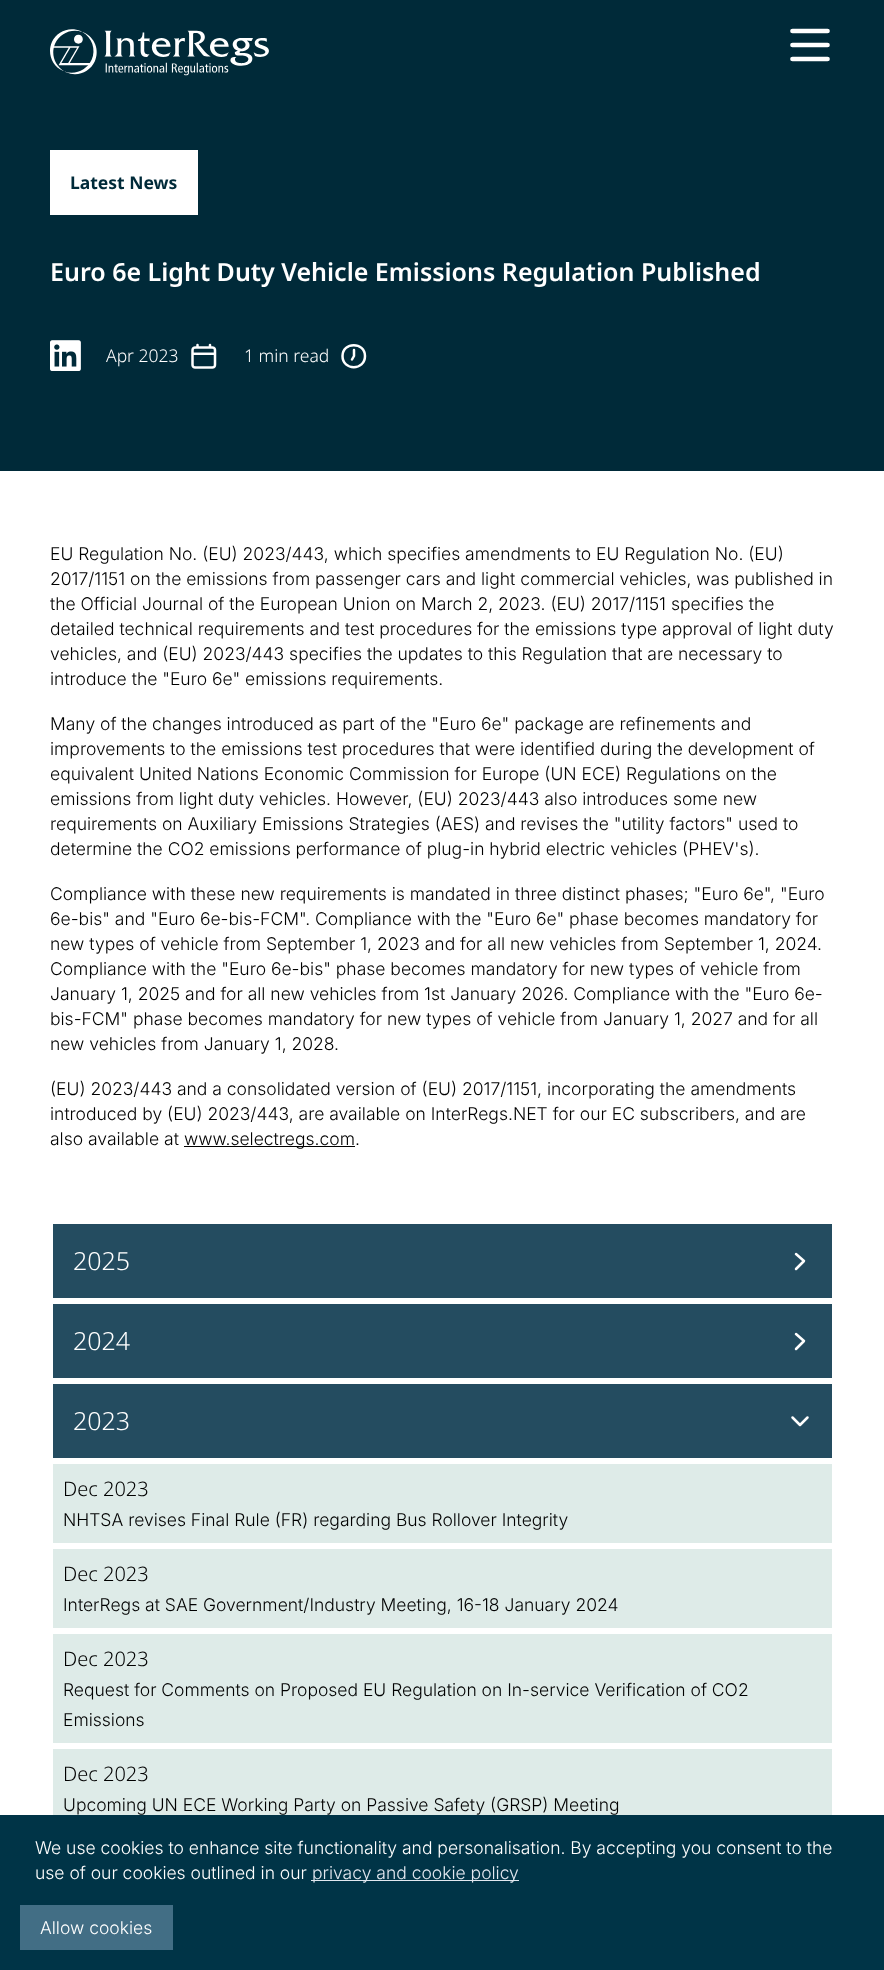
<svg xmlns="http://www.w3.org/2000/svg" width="884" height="1970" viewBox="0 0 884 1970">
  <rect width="100%" height="100%" fill="rgb(0,42,57)"/>
  <image x="50" y="29" width="219" height="47" href="pic1.png"/>
  <path d="M792.5 31H827.5M792.5 45H827.5M792.5 59H827.5" fill="none" stroke="rgb(255,255,255)" stroke-width="4.7" stroke-linecap="round" stroke-linejoin="round"/>
  <rect x="50" y="150" width="148" height="65" fill="rgb(255,255,255)"/>
  <text x="70" y="189" font-family="Noto Sans" font-size="17.5" font-weight="bold" fill="rgb(0,42,57)">Latest News</text>
  <text x="50" y="281" font-family="Noto Sans" font-size="25" font-weight="600" fill="rgb(255,255,255)">Euro 6e Light Duty Vehicle Emissions Regulation Published</text>
  <image x="50" y="340" width="31" height="31" href="pic2.png"/>
  <text x="106" y="362" font-family="Noto Sans" font-size="17.5" font-weight="300" fill="rgb(255,255,255)">Apr 2023</text>
  <image x="191" y="343" width="26" height="26" href="pic3.png"/>
  <text x="244" y="362" font-family="Noto Sans" font-size="17.5" font-weight="300" fill="rgb(255,255,255)">1 min read</text>
  <path d="M354 350V356L352 359.5M365 356C365 371 342.5 371 342.5 356C342.5 341.5 365 341.5 365 356Z" fill="none" stroke="rgb(255,255,255)" stroke-width="2.5" stroke-linecap="round" stroke-linejoin="round"/>
  <rect x="0" y="471" width="884" height="1344" fill="rgb(255,255,255)"/>
  <g font-family="Inter" font-size="17.5" font-weight="300" fill="rgb(0,0,0)">
    <text>
      <tspan x="50" y="560">EU Regulation No. (EU) 2023/443, which specifies amendments to EU Regulation No. (EU)</tspan>
      <tspan x="50" y="585">2017/1151 on the emissions from passenger cars and light commercial vehicles, was published in</tspan>
      <tspan x="50" y="610">the Official Journal of the European Union on March 2, 2023. (EU) 2017/1151 specifies the</tspan>
      <tspan x="50" y="635">detailed technical requirements and test procedures for the emissions type approval of light duty</tspan>
      <tspan x="50" y="660">vehicles, and (EU) 2023/443 specifies the updates to this Regulation that are necessary to</tspan>
      <tspan x="50" y="685">introduce the "Euro 6e" emissions requirements.</tspan>
    </text>
    <text>
      <tspan x="50" y="730">Many of the changes introduced as part of the "Euro 6e" package are refinements and</tspan>
      <tspan x="50" y="755">improvements to the emissions test procedures that were identified during the development of</tspan>
      <tspan x="50" y="780">equivalent United Nations Economic Commission for Europe (UN ECE) Regulations on the</tspan>
      <tspan x="50" y="805">emissions from light duty vehicles. However, (EU) 2023/443 also introduces some new</tspan>
      <tspan x="50" y="830">requirements on Auxiliary Emissions Strategies (AES) and revises the "utility factors" used to</tspan>
      <tspan x="50" y="855">determine the CO2 emissions performance of plug-in hybrid electric vehicles (PHEV's).</tspan>
    </text>
    <text>
      <tspan x="50" y="900">Compliance with these new requirements is mandated in three distinct phases; "Euro 6e", "Euro</tspan>
      <tspan x="50" y="925">6e-bis" and "Euro 6e-bis-FCM". Compliance with the "Euro 6e" phase becomes mandatory for</tspan>
      <tspan x="50" y="950">new types of vehicle from September 1, 2023 and for all new vehicles from September 1, 2024.</tspan>
      <tspan x="50" y="975">Compliance with the "Euro 6e-bis" phase becomes mandatory for new types of vehicle from</tspan>
      <tspan x="50" y="1000">January 1, 2025 and for all new vehicles from 1st January 2026. Compliance with the "Euro 6e-</tspan>
      <tspan x="50" y="1025">bis-FCM" phase becomes mandatory for new types of vehicle from January 1, 2027 and for all</tspan>
      <tspan x="50" y="1050">new vehicles from January 1, 2028.</tspan>
    </text>
    <text>
      <tspan x="50" y="1095">(EU) 2023/443 and a consolidated version of (EU) 2017/1151, incorporating the amendments</tspan>
      <tspan x="50" y="1120">introduced by (EU) 2023/443, are available on InterRegs.NET for our EC subscribers, and are</tspan>
      <tspan x="50" y="1145">also available at</tspan>
    </text>
  </g>
  <rect x="184" y="1146" width="171" height="1" fill="rgb(0,0,0)"/>
  <text x="184" y="1145" font-family="Inter" font-size="17.5" font-weight="300" fill="rgb(0,0,0)">www.selectregs.com.</text>
  <rect x="53" y="1224" width="779" height="74" fill="rgb(36,76,96)"/>
  <text x="73" y="1270" font-family="Noto Sans" font-size="25" font-weight="300" fill="rgb(255,255,255)">2025</text>
  <path d="M796 1254L804 1261L796 1269" fill="none" stroke="rgb(255,255,255)" stroke-width="2.5" stroke-linecap="round" stroke-linejoin="round"/>
  <rect x="53" y="1304" width="779" height="74" fill="rgb(36,76,96)"/>
  <text x="73" y="1350" font-family="Noto Sans" font-size="25" font-weight="300" fill="rgb(255,255,255)">2024</text>
  <path d="M796 1334L804 1341L796 1349" fill="none" stroke="rgb(255,255,255)" stroke-width="2.5" stroke-linecap="round" stroke-linejoin="round"/>
  <rect x="53" y="1384" width="779" height="74" fill="rgb(36,76,96)"/>
  <text x="73" y="1430" font-family="Noto Sans" font-size="25" font-weight="300" fill="rgb(255,255,255)">2023</text>
  <path d="M792.5 1417.5L800 1425L807.5 1417.5" fill="none" stroke="rgb(255,255,255)" stroke-width="2.5" stroke-linecap="round" stroke-linejoin="round"/>
  <rect x="53" y="1464" width="779" height="79" fill="rgb(222,235,232)"/>
  <text x="63" y="1496" font-family="Noto Sans" font-size="20" font-weight="300" fill="rgb(0,0,0)">Dec 2023</text>
  <text x="63" y="1526" font-family="Inter" font-size="17.5" font-weight="300" fill="rgb(0,0,0)">NHTSA revises Final Rule (FR) regarding Bus Rollover Integrity</text>
  <rect x="53" y="1549" width="779" height="79" fill="rgb(222,235,232)"/>
  <text x="63" y="1581" font-family="Noto Sans" font-size="20" font-weight="300" fill="rgb(0,0,0)">Dec 2023</text>
  <text x="63" y="1611" font-family="Inter" font-size="17.5" font-weight="300" fill="rgb(0,0,0)">InterRegs at SAE Government/Industry Meeting, 16-18 January 2024</text>
  <rect x="53" y="1634" width="779" height="109" fill="rgb(222,235,232)"/>
  <text x="63" y="1666" font-family="Noto Sans" font-size="20" font-weight="300" fill="rgb(0,0,0)">Dec 2023</text>
  <g font-family="Inter" font-size="17.5" font-weight="300" fill="rgb(0,0,0)">
    <text>
      <tspan x="63" y="1696">Request for Comments on Proposed EU Regulation on In-service Verification of CO2</tspan>
      <tspan x="63" y="1726">Emissions</tspan>
    </text>
  </g>
  <rect x="53" y="1749" width="779" height="66" fill="rgb(222,235,232)"/>
  <rect x="51.5" y="1747.5" width="782" height="82" fill="none" stroke="rgb(255,255,255)" stroke-width="3"/>
  <text x="63" y="1781" font-family="Noto Sans" font-size="20" font-weight="300" fill="rgb(0,0,0)">Dec 2023</text>
  <text x="63" y="1811" font-family="Inter" font-size="17.5" font-weight="300" fill="rgb(0,0,0)">Upcoming UN ECE Working Party on Passive Safety (GRSP) Meeting</text>
  <rect x="0" y="1815" width="884" height="155" fill="rgb(0,52,71)"/>
  <g font-family="Inter" font-size="17.5" font-weight="300" fill="rgb(255,255,255)">
    <text>
      <tspan x="35" y="1854">We use cookies to enhance site functionality and personalisation. By accepting you consent to the</tspan>
      <tspan x="35" y="1879">use of our cookies outlined in our</tspan>
    </text>
  </g>
  <rect x="311" y="1880" width="208" height="1" fill="rgb(226,232,240)"/>
  <text x="312" y="1879" font-family="Inter" font-size="17.5" font-weight="300" fill="rgb(226,232,240)">privacy and cookie policy</text>
  <rect x="20" y="1905" width="153" height="45" fill="rgb(66,110,133)"/>
  <text x="40" y="1934" font-family="Inter" font-size="17.5" font-weight="300" fill="rgb(255,255,255)">Allow cookies</text>
</svg>
